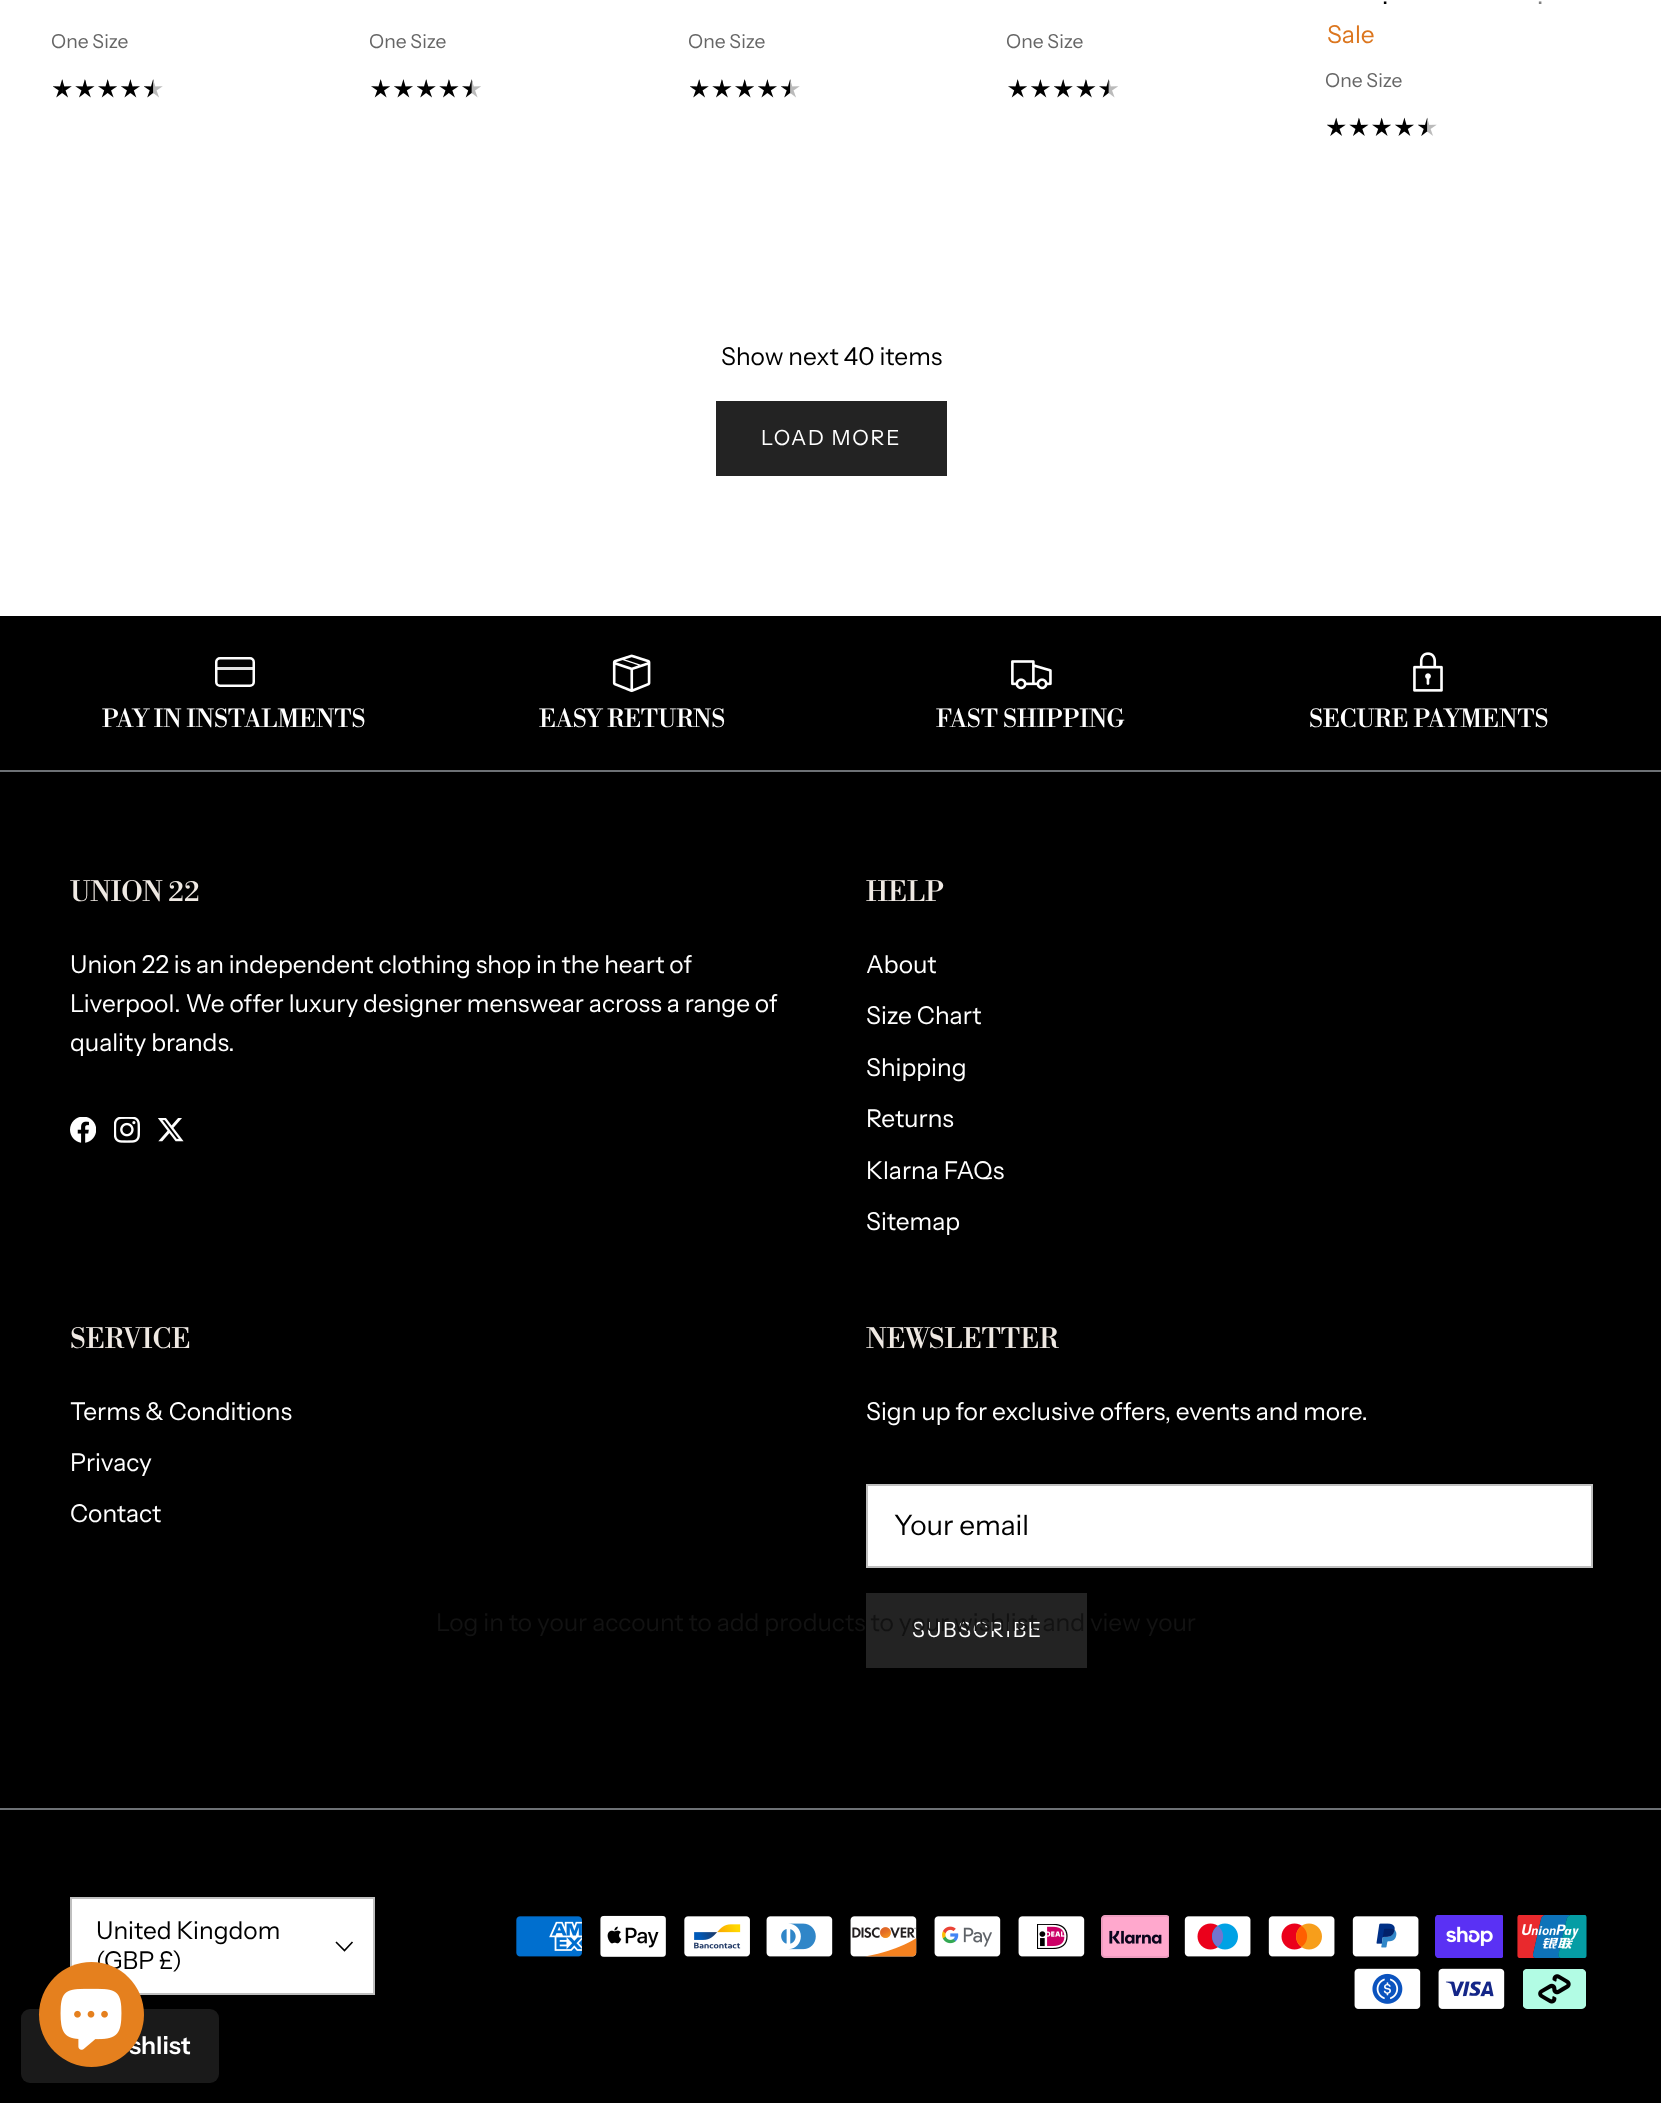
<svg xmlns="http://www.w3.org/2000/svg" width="1661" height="2103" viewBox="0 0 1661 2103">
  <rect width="100%" height="100%" fill="rgb(255,255,255)"/>
  <text x="51" y="48" font-family="Instrument Sans" font-size="19.25" fill="rgb(102,102,102)">One Size</text>
  <image x="53" y="79" width="19" height="19" href="pic1.png"/>
  <image x="75" y="79" width="20" height="19" href="pic2.png"/>
  <image x="98" y="79" width="19" height="19" href="pic3.png"/>
  <image x="121" y="79" width="19" height="19" href="pic4.png"/>
  <image x="144" y="79" width="19" height="19" href="pic5.png"/>
  <text x="369" y="48" font-family="Instrument Sans" font-size="19.25" fill="rgb(102,102,102)">One Size</text>
  <image x="371" y="79" width="19" height="19" href="pic3.png"/>
  <image x="394" y="79" width="19" height="19" href="pic4.png"/>
  <image x="417" y="79" width="19" height="19" href="pic1.png"/>
  <image x="439" y="79" width="20" height="19" href="pic2.png"/>
  <image x="462" y="79" width="19" height="19" href="pic6.png"/>
  <text x="688" y="48" font-family="Instrument Sans" font-size="19.25" fill="rgb(102,102,102)">One Size</text>
  <image x="690" y="79" width="19" height="19" href="pic1.png"/>
  <image x="712" y="79" width="20" height="19" href="pic2.png"/>
  <image x="735" y="79" width="19" height="19" href="pic3.png"/>
  <image x="758" y="79" width="19" height="19" href="pic4.png"/>
  <image x="781" y="79" width="19" height="19" href="pic5.png"/>
  <text x="1006" y="48" font-family="Instrument Sans" font-size="19.25" fill="rgb(102,102,102)">One Size</text>
  <image x="1008" y="79" width="19" height="19" href="pic3.png"/>
  <image x="1031" y="79" width="19" height="19" href="pic4.png"/>
  <image x="1054" y="79" width="19" height="19" href="pic1.png"/>
  <image x="1076" y="79" width="20" height="19" href="pic2.png"/>
  <image x="1099" y="79" width="19" height="19" href="pic6.png"/>
  <text x="1382" y="4" font-family="Instrument Sans" font-size="24.5" fill="rgb(0,0,0)">.</text>
  <text x="1537" y="4" font-family="Instrument Sans" font-size="24.5" fill="rgb(128,128,128)">.</text>
  <text x="1327" y="43" font-family="Instrument Sans" font-size="24.5" fill="rgb(220,118,30)">Sale</text>
  <text x="1325" y="87" font-family="Instrument Sans" font-size="19.25" fill="rgb(102,102,102)">One Size</text>
  <image x="1327" y="117" width="19" height="19" href="pic7.png"/>
  <image x="1349" y="117" width="20" height="19" href="pic8.png"/>
  <image x="1372" y="117" width="19" height="19" href="pic9.png"/>
  <image x="1395" y="117" width="19" height="19" href="pic10.png"/>
  <image x="1418" y="117" width="19" height="19" href="pic11.png"/>
  <text x="721" y="365" font-family="Instrument Sans" font-size="24.5" fill="rgb(0,0,0)">Show next 40 items</text>
  <rect x="716" y="401" width="231" height="75" fill="rgb(35,35,35)"/>
  <text x="761" y="445" font-family="Instrument Sans" font-size="21" letter-spacing="1.75" fill="rgb(255,255,255)">LOAD MORE</text>
  <rect x="0" y="616" width="1661" height="154" fill="rgb(0,0,0)"/>
  <rect x="216.25" y="658.25" width="37.5" height="27.5" rx="3.75" fill="none" stroke="rgb(255,255,255)" stroke-width="2.5"/>
  <rect x="216" y="667" width="38" height="3" fill="rgba(255,255,255,0.87)"/>
  <text x="102" y="727" font-family="Libre Bodoni" font-size="24.5" fill="rgb(255,255,255)">PAY IN INSTALMENTS</text>
  <image x="612" y="654" width="39" height="39" href="pic12.png"/>
  <text x="539" y="727" font-family="Libre Bodoni" font-size="24.5" fill="rgb(255,255,255)">EASY RETURNS</text>
  <image x="1011" y="660" width="41" height="30" href="pic13.png"/>
  <text x="936" y="727" font-family="Libre Bodoni" font-size="24.5" fill="rgb(255,255,255)">FAST SHIPPING</text>
  <image x="1413" y="652" width="30" height="40" href="pic14.png"/>
  <text x="1309" y="727" font-family="Libre Bodoni" font-size="24.5" fill="rgb(255,255,255)">SECURE PAYMENTS</text>
  <rect x="0" y="772" width="1661" height="1331" fill="rgb(0,0,0)"/>
  <rect x="0" y="770" width="1661" height="2" fill="rgb(109,113,117)"/>
  <text x="70" y="901" font-family="Libre Bodoni" font-size="27.5" fill="rgb(239,233,227)">UNION 22</text>
  <g font-family="Instrument Sans" font-size="24.5" fill="rgb(255,255,255)">
    <text>
      <tspan x="70" y="973">Union 22 is an independent clothing shop in the heart of</tspan>
      <tspan x="70" y="1012">Liverpool. We offer luxury designer menswear across a range of</tspan>
      <tspan x="70" y="1051">quality brands.</tspan>
    </text>
  </g>
  <image x="70" y="1117" width="26" height="26" href="pic15.png"/>
  <image x="114" y="1117" width="26" height="26" href="pic16.png"/>
  <image x="158" y="1118" width="26" height="24" href="pic17.png"/>
  <text x="866" y="901" font-family="Libre Bodoni" font-size="27.5" fill="rgb(239,233,227)">HELP</text>
  <g font-family="Instrument Sans" font-size="24.5" fill="rgb(255,255,255)">
    <text x="866" y="973">About</text>
    <text x="866" y="1024">Size Chart</text>
    <text x="866" y="1076">Shipping</text>
    <text x="866" y="1127">Returns</text>
    <text x="866" y="1179">Klarna FAQs</text>
    <text x="866" y="1230">Sitemap</text>
  </g>
  <text x="70" y="1348" font-family="Libre Bodoni" font-size="27.5" fill="rgb(239,233,227)">SERVICE</text>
  <g font-family="Instrument Sans" font-size="24.5" fill="rgb(255,255,255)">
    <text x="70" y="1420">Terms &amp; Conditions</text>
    <text x="70" y="1471">Privacy</text>
    <text x="70" y="1522">Contact</text>
  </g>
  <text x="866" y="1348" font-family="Libre Bodoni" font-size="27.5" fill="rgb(239,233,227)">NEWSLETTER</text>
  <text x="866" y="1420" font-family="Instrument Sans" font-size="24.5" fill="rgb(255,255,255)">Sign up for exclusive offers, events and more.</text>
  <rect x="867" y="1485" width="725" height="82" fill="rgb(255,255,255)" stroke="rgb(191,191,191)" stroke-width="2"/>
  <text x="894" y="1535" font-family="Instrument Sans" font-size="28" fill="rgb(0,0,0)">Your email</text>
  <rect x="866" y="1593" width="221" height="75" fill="rgb(35,35,35)"/>
  <text x="912" y="1637" font-family="Instrument Sans" font-size="21" letter-spacing="1.75" fill="rgb(255,255,255)">SUBSCRIBE</text>
  <rect x="0" y="1808" width="1661" height="2" fill="rgb(109,113,117)"/>
  <rect x="71" y="1898" width="303" height="96" fill="rgb(255,255,255)" stroke="rgb(191,191,191)" stroke-width="2"/>
  <g font-family="Instrument Sans" font-size="24.5" fill="rgb(0,0,0)">
    <text>
      <tspan x="96" y="1939">United Kingdom</tspan>
      <tspan x="96" y="1969">(GBP £)</tspan>
    </text>
  </g>
  <path d="M352.5 1942L344.5 1950.5L336 1942" fill="none" stroke="rgb(0,0,0)" stroke-width="1.6"/>
  <image x="516" y="1916" width="66" height="41" href="pic18.png"/>
  <image x="600" y="1915" width="66" height="42" href="pic19.png"/>
  <image x="684" y="1916" width="66" height="41" href="pic20.png"/>
  <image x="766" y="1916" width="67" height="41" href="pic21.png"/>
  <image x="850" y="1916" width="67" height="41" href="pic22.png"/>
  <image x="934" y="1916" width="67" height="41" href="pic23.png"/>
  <image x="1018" y="1916" width="67" height="41" href="pic24.png"/>
  <image x="1101" y="1915" width="68" height="43" href="pic25.png"/>
  <image x="1184" y="1916" width="67" height="41" href="pic26.png"/>
  <image x="1268" y="1916" width="67" height="41" href="pic27.png"/>
  <image x="1352" y="1916" width="67" height="41" href="pic28.png"/>
  <image x="1435" y="1915" width="68" height="43" href="pic29.png"/>
  <image x="1517" y="1915" width="70" height="43" href="pic30.png"/>
  <image x="1354" y="1968" width="67" height="41" href="pic31.png"/>
  <image x="1438" y="1968" width="67" height="41" href="pic32.png"/>
  <image x="1523" y="1969" width="63" height="40" href="pic33.png"/>
  <rect x="21" y="2009" width="198" height="74" rx="9" fill="rgb(26,26,26)"/>
  <text x="129" y="2054" font-family="Instrument Sans" font-size="24.5" font-weight="600" fill="rgb(255,255,255)">shlist</text>
  <circle cx="91.5" cy="2014.5" r="52.5" fill="rgb(229,128,30)"/>
  <image x="60" y="1988" width="62" height="62" href="pic34.png"/>
  <text x="436" y="1631" font-family="Instrument Sans" font-size="24.5" fill="rgb(18,18,18)">Log in to your account to add products to your wishlist and view your</text>
</svg>
